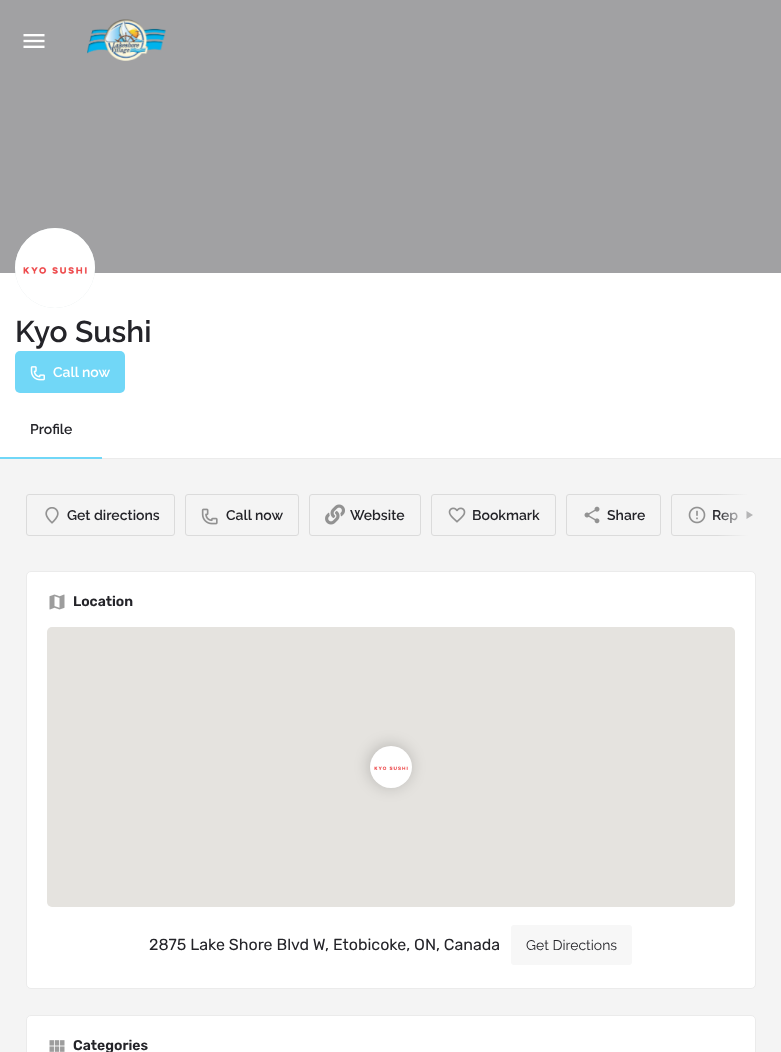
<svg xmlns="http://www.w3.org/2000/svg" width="781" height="1052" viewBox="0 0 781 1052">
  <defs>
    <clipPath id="clip1"><rect x="26" y="494" width="730" height="42"/></clipPath>
    <linearGradient id="g1" gradientUnits="userSpaceOnUse" x1="717" y1="515" x2="756" y2="515"><stop offset="0" stop-color="rgb(244,244,244)" stop-opacity="0"/><stop offset="0.8" stop-color="rgb(244,244,244)"/></linearGradient>
  </defs>
  <rect width="100%" height="100%" fill="rgb(244,244,244)"/>
  <rect x="0" y="0" width="781" height="273" fill="rgb(161,161,163)"/>
  <image x="23" y="34" width="22" height="14" href="pic1.png"/>
  <image x="87" y="19" width="79" height="42" href="pic2.png"/>
  <rect x="0" y="273" width="781" height="185" fill="rgb(255,255,255)"/>
  <circle cx="55" cy="268" r="40" fill="rgb(221,229,230)"/>
  <image x="15" y="228" width="80" height="80" href="pic3.png"/>
  <text x="15" y="342" font-family="Raleway" font-size="30" font-weight="600" fill="rgb(36,36,41)">Kyo Sushi</text>
  <rect x="15" y="351" width="110" height="42" rx="5" fill="rgb(113,215,247)"/>
  <image x="30" y="366" width="15" height="15" href="pic4.png"/>
  <text x="53" y="377" font-family="Raleway" font-size="14" font-weight="600" fill="rgb(255,255,255)">Call now</text>
  <rect x="102" y="458" width="679" height="1" fill="rgb(235,235,235)"/>
  <text x="30" y="434" font-family="Raleway" font-size="14" font-weight="600" fill="rgb(36,36,41)">Profile</text>
  <rect x="0" y="457" width="102" height="2" fill="rgb(113,215,247)"/>
  <rect x="26.5" y="494.5" width="148" height="41" rx="2.5" fill="none" stroke="rgb(219,219,219)"/>
  <image x="45" y="507" width="14" height="17" href="pic5.png"/>
  <text x="67" y="520" font-family="Raleway" font-size="14" font-weight="600" fill="rgb(36,36,41)">Get directions</text>
  <rect x="185.5" y="494.5" width="113" height="41" rx="2.5" fill="none" stroke="rgb(219,219,219)"/>
  <image x="201" y="508" width="17" height="17" href="pic6.png"/>
  <text x="226" y="520" font-family="Raleway" font-size="14" font-weight="600" fill="rgb(36,36,41)">Call now</text>
  <rect x="309.5" y="494.5" width="111" height="41" rx="2.5" fill="none" stroke="rgb(219,219,219)"/>
  <image x="325" y="504" width="20" height="21" href="pic7.png"/>
  <text x="350" y="520" font-family="Raleway" font-size="14" font-weight="600" fill="rgb(36,36,41)">Website</text>
  <rect x="431.5" y="494.5" width="124" height="41" rx="2.5" fill="none" stroke="rgb(219,219,219)"/>
  <image x="448" y="507" width="18" height="16" href="pic8.png"/>
  <text x="472" y="520" font-family="Raleway" font-size="14" font-weight="600" fill="rgb(36,36,41)">Bookmark</text>
  <rect x="566.5" y="494.5" width="94" height="41" rx="2.5" fill="none" stroke="rgb(219,219,219)"/>
  <image x="584" y="506" width="16" height="18" href="pic9.png"/>
  <text x="607" y="520" font-family="Raleway" font-size="14" font-weight="600" fill="rgb(36,36,41)">Share</text>
  <g clip-path="url(#clip1)">
    <rect x="671.5" y="494.5" width="101" height="41" rx="2.5" fill="none" stroke="rgb(219,219,219)"/>
  </g>
  <text x="712" y="520" font-family="Raleway" font-size="14" font-weight="600" fill="rgb(36,36,41)">Rep</text>
  <rect x="718" y="494" width="38" height="42" fill="url(#g1)"/>
  <path d="M746.5 511L753 515L746.5 519Z" fill="rgba(36,36,41,0.3)"/>
  <image x="688" y="506" width="18" height="18" href="pic10.png"/>
  <rect x="26.5" y="571.5" width="729" height="417" rx="4.5" fill="rgb(255,255,255)" stroke="rgb(235,235,235)"/>
  <image x="49" y="594" width="16" height="16" href="pic11.png"/>
  <text x="73" y="606" font-family="Rubik" font-size="14" font-weight="600" fill="rgb(36,36,41)">Location</text>
  <rect x="47" y="627" width="688" height="280" rx="5" fill="rgb(229,227,223)"/>
  <rect x="369" y="745" width="42" height="42" rx="21" fill="rgba(0,0,0,0.2)" filter="blur(7.5px)"/>
  <image x="370" y="746" width="42" height="42" href="pic12.png"/>
  <text x="149" y="950" font-family="Rubik" font-size="16" fill="rgb(36,36,41)">2875 Lake Shore Blvd W, Etobicoke, ON, Canada</text>
  <rect x="511" y="925" width="121" height="40" rx="3" fill="rgb(247,247,247)"/>
  <text x="526" y="950" font-family="Raleway" font-size="14" fill="rgb(36,36,41)">Get Directions</text>
  <rect x="26.5" y="1015.5" width="729" height="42" rx="4.5" fill="rgb(255,255,255)" stroke="rgb(235,235,235)"/>
  <image x="49" y="1040" width="16" height="12" href="pic13.png"/>
  <text x="73" y="1050" font-family="Rubik" font-size="14" font-weight="600" fill="rgb(36,36,41)">Categories</text>
</svg>
